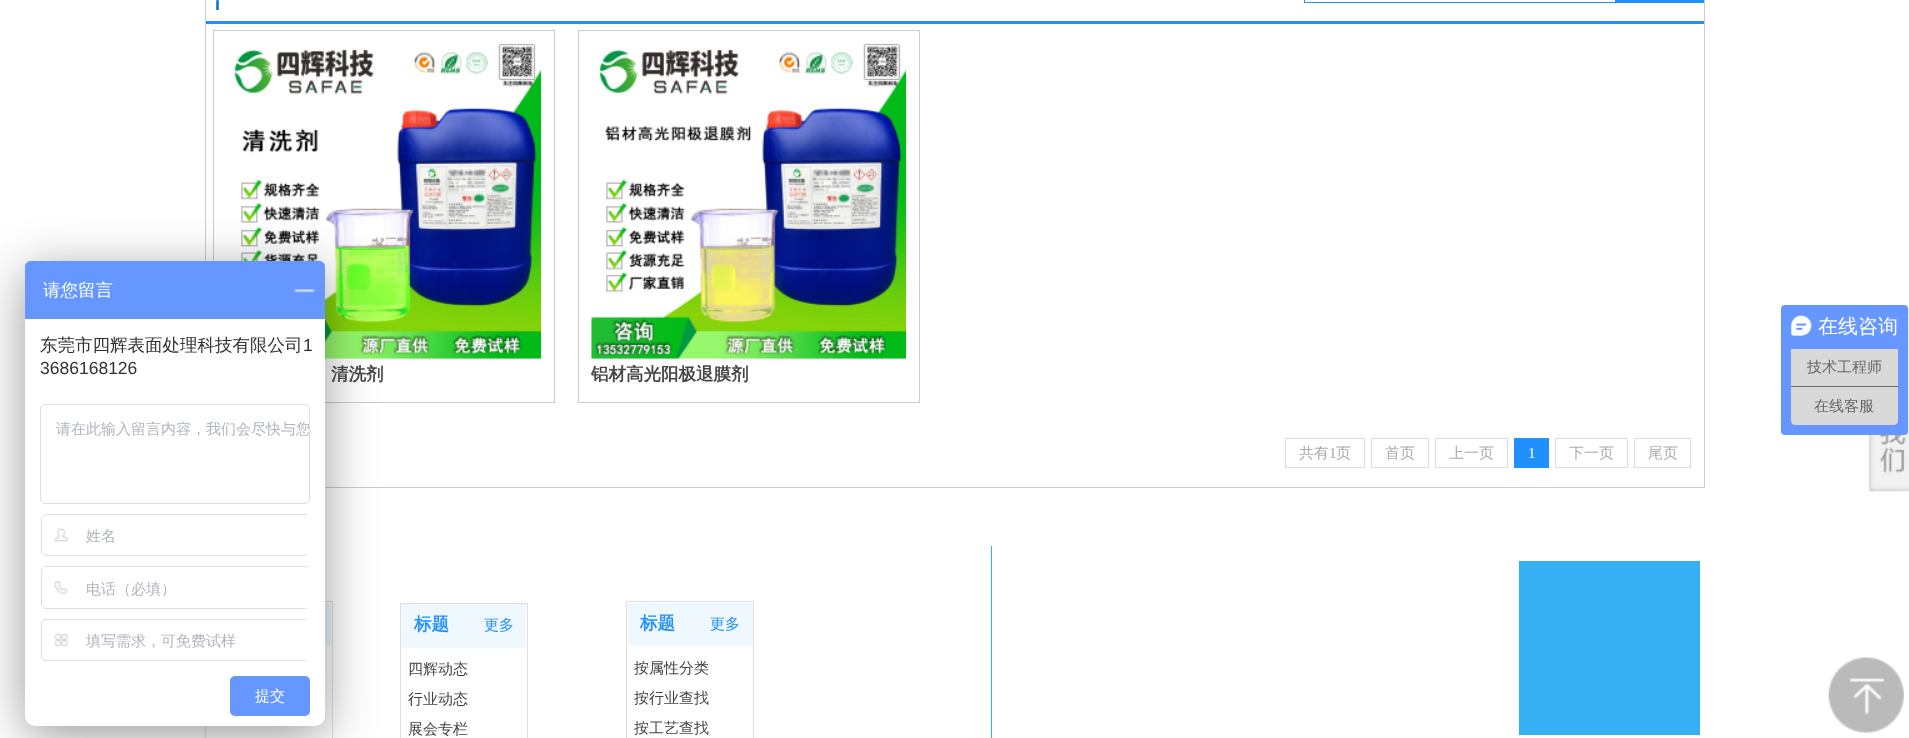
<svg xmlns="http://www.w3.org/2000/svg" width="1909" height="738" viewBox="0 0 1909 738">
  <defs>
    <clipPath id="clip1"><rect x="41" y="405" width="268" height="98" rx="4"/></clipPath>
  </defs>
  <rect width="100%" height="100%" fill="rgb(255,255,255)"/>
  <rect x="205.5" y="-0.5" width="1499" height="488" fill="none" stroke="rgb(204,204,204)"/>
  <rect x="213.5" y="30.5" width="341" height="372" fill="none" stroke="rgb(204,204,204)"/>
  <image x="226" y="43" width="316" height="316" href="pic7.png"/>
  <rect x="205.5" y="601.5" width="127" height="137" fill="none" stroke="rgb(224,223,221)"/>
  <rect x="325" y="603" width="6" height="43" fill="rgb(239,248,255)"/>
  <rect x="400.5" y="603.5" width="127" height="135" fill="none" stroke="rgb(224,223,221)"/>
  <rect x="25" y="271" width="300" height="465" rx="10" fill="rgba(0,0,0,0.4)" filter="blur(25px)"/>
  <rect x="25" y="261" width="300" height="465" rx="10" fill="rgb(255,255,255)"/>
  <path d="M31 261H319C322.5 261 325 263.5 325 267V319H25V267C25 263.5 27.5 261 31 261Z" fill="rgb(102,150,255)"/>
  <text x="43" y="296" font-family="WenQuanYi Zen Hei" font-size="17.5" font-weight="500" fill="rgb(255,255,255)">请您留言</text>
  <image x="293" y="289" width="23" height="4" href="pic1.png"/>
  <text x="40" y="351" font-family="WenQuanYi Zen Hei" font-size="17.5" font-weight="500" fill="rgb(48,49,51)">东莞市四辉表面处理科技有限公司</text>
  <g font-family="Liberation Sans" font-size="17.5" fill="rgb(48,49,51)">
    <text x="303" y="351">1</text>
    <text x="40" y="374">3686168126</text>
  </g>
  <rect x="40.5" y="404.5" width="269" height="99" rx="4.5" fill="none" stroke="rgb(220,223,230)"/>
  <g clip-path="url(#clip1)">
    <text x="56" y="434" font-family="WenQuanYi Zen Hei" font-size="15" font-weight="500" fill="rgb(176,180,187)">请在此输入留言内容，我们会尽快与您</text>
  </g>
  <rect x="41.5" y="514.5" width="268" height="41" rx="4.5" fill="none" stroke="rgb(220,223,230)"/>
  <image x="54" y="527" width="15" height="15" href="pic2.png"/>
  <rect x="306" y="515" width="4" height="40" fill="rgb(255,255,255)"/>
  <text x="86" y="541" font-family="WenQuanYi Zen Hei" font-size="15" font-weight="500" fill="rgb(176,180,187)">姓名</text>
  <rect x="41.5" y="566.5" width="268" height="42" rx="4.5" fill="none" stroke="rgb(220,223,230)"/>
  <image x="53" y="580" width="15" height="15" href="pic3.png"/>
  <rect x="306" y="568" width="4" height="40" fill="rgb(255,255,255)"/>
  <text x="86" y="594" font-family="WenQuanYi Zen Hei" font-size="15" font-weight="500" fill="rgb(176,180,187)">电话（必填）</text>
  <rect x="41.5" y="619.5" width="268" height="41" rx="4.5" fill="none" stroke="rgb(220,223,230)"/>
  <image x="54" y="633" width="15" height="14" href="pic4.png"/>
  <rect x="306" y="620" width="4" height="40" fill="rgb(255,255,255)"/>
  <text x="86" y="646" font-family="WenQuanYi Zen Hei" font-size="15" font-weight="500" fill="rgb(176,180,187)">填写需求，可免费试样</text>
  <rect x="230" y="676" width="80" height="40" rx="5" fill="rgb(102,150,255)"/>
  <text x="255" y="701" font-family="WenQuanYi Zen Hei" font-size="15" font-weight="500" fill="rgb(255,255,255)">提交</text>
  <image x="1869" y="309" width="40" height="183" href="pic9.png"/>
  <rect x="1781" y="305" width="127" height="130" rx="4" fill="rgb(102,150,255)"/>
  <image x="1791" y="315" width="21" height="21" href="pic5.png"/>
  <text x="1818" y="333" font-family="WenQuanYi Zen Hei" font-size="20" font-weight="500" fill="rgb(255,255,255)">在线咨询</text>
  <rect x="1791" y="349" width="107" height="39" fill="rgb(217,217,217)"/>
  <rect x="1791" y="386" width="107" height="1" fill="rgb(109,109,109)"/>
  <text x="1807" y="372" font-family="WenQuanYi Zen Hei" font-size="15" font-weight="500" fill="rgb(102,102,102)">技术工程师</text>
  <path d="M1791 388H1898V421C1898 423 1896 425 1894 425H1795C1793 425 1791 423 1791 421Z" fill="rgb(217,217,217)"/>
  <text x="1814" y="411" font-family="WenQuanYi Zen Hei" font-size="15" font-weight="500" fill="rgb(102,102,102)">在线客服</text>
  <rect x="1304.5" y="-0.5" width="311" height="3" fill="none" stroke="rgb(30,144,255)"/>
  <rect x="1616" y="0" width="88" height="3" fill="rgb(30,144,255)"/>
  <image x="216" y="0" width="3" height="10" href="pic6.png"/>
  <rect x="206" y="21" width="1498" height="3" fill="rgb(32,144,255)"/>
  <text x="331" y="380" font-family="WenQuanYi Zen Hei" font-size="17.5" font-weight="bold" fill="rgb(68,68,68)">清洗剂</text>
  <rect x="578.5" y="30.5" width="341" height="372" fill="none" stroke="rgb(204,204,204)"/>
  <image x="591" y="43" width="316" height="316" href="pic8.png"/>
  <text x="591" y="380" font-family="WenQuanYi Zen Hei" font-size="17.5" font-weight="bold" fill="rgb(68,68,68)">铝材高光阳极退膜剂</text>
  <rect x="1285.5" y="438.5" width="79" height="29" fill="none" stroke="rgb(221,221,221)"/>
  <text x="1299" y="458" font-family="WenQuanYi Zen Hei" font-size="15" font-weight="500" fill="rgb(170,170,170)">共有</text>
  <text x="1329" y="458" font-family="Liberation Serif" font-size="15" fill="rgb(170,170,170)">1</text>
  <text x="1336" y="458" font-family="WenQuanYi Zen Hei" font-size="15" font-weight="500" fill="rgb(170,170,170)">页</text>
  <rect x="1371.5" y="438.5" width="57" height="29" fill="none" stroke="rgb(221,221,221)"/>
  <text x="1385" y="458" font-family="WenQuanYi Zen Hei" font-size="15" font-weight="500" fill="rgb(170,170,170)">首页</text>
  <rect x="1435.5" y="438.5" width="72" height="29" fill="none" stroke="rgb(221,221,221)"/>
  <text x="1449" y="458" font-family="WenQuanYi Zen Hei" font-size="15" font-weight="500" fill="rgb(170,170,170)">上一页</text>
  <rect x="1514" y="438" width="35" height="30" fill="rgb(32,144,255)"/>
  <text x="1528" y="458" font-family="Liberation Serif" font-size="15" fill="rgb(255,255,255)">1</text>
  <rect x="1555.5" y="438.5" width="72" height="29" fill="none" stroke="rgb(221,221,221)"/>
  <text x="1569" y="458" font-family="WenQuanYi Zen Hei" font-size="15" font-weight="500" fill="rgb(170,170,170)">下一页</text>
  <rect x="1634.5" y="438.5" width="56" height="29" fill="none" stroke="rgb(221,221,221)"/>
  <text x="1648" y="458" font-family="WenQuanYi Zen Hei" font-size="15" font-weight="500" fill="rgb(170,170,170)">尾页</text>
  <rect x="401" y="604" width="125" height="44" fill="rgb(239,248,255)"/>
  <text x="414" y="630" font-family="WenQuanYi Zen Hei" font-size="17.5" font-weight="bold" fill="rgb(32,144,255)">标题</text>
  <text x="484" y="630" font-family="WenQuanYi Zen Hei" font-size="15" font-weight="500" fill="rgb(32,144,255)">更多</text>
  <g font-family="WenQuanYi Zen Hei" font-size="15" font-weight="500" fill="rgb(68,68,68)">
    <text x="408" y="674">四辉动态</text>
    <text x="408" y="704">行业动态</text>
    <text x="408" y="734">展会专栏</text>
  </g>
  <rect x="626.5" y="601.5" width="127" height="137" fill="none" stroke="rgb(224,223,221)"/>
  <rect x="628" y="603" width="125" height="43" fill="rgb(239,248,255)"/>
  <text x="640" y="629" font-family="WenQuanYi Zen Hei" font-size="17.5" font-weight="bold" fill="rgb(32,144,255)">标题</text>
  <text x="710" y="629" font-family="WenQuanYi Zen Hei" font-size="15" font-weight="500" fill="rgb(32,144,255)">更多</text>
  <g font-family="WenQuanYi Zen Hei" font-size="15" font-weight="500" fill="rgb(68,68,68)">
    <text x="634" y="673">按属性分类</text>
    <text x="634" y="703">按行业查找</text>
    <text x="634" y="733">按工艺查找</text>
  </g>
  <rect x="991" y="546" width="1" height="192" fill="rgb(54,176,243)"/>
  <rect x="1519" y="561" width="181" height="174" fill="rgb(54,176,243)"/>
  <image x="1828" y="657" width="76" height="76" href="pic10.png"/>
</svg>
